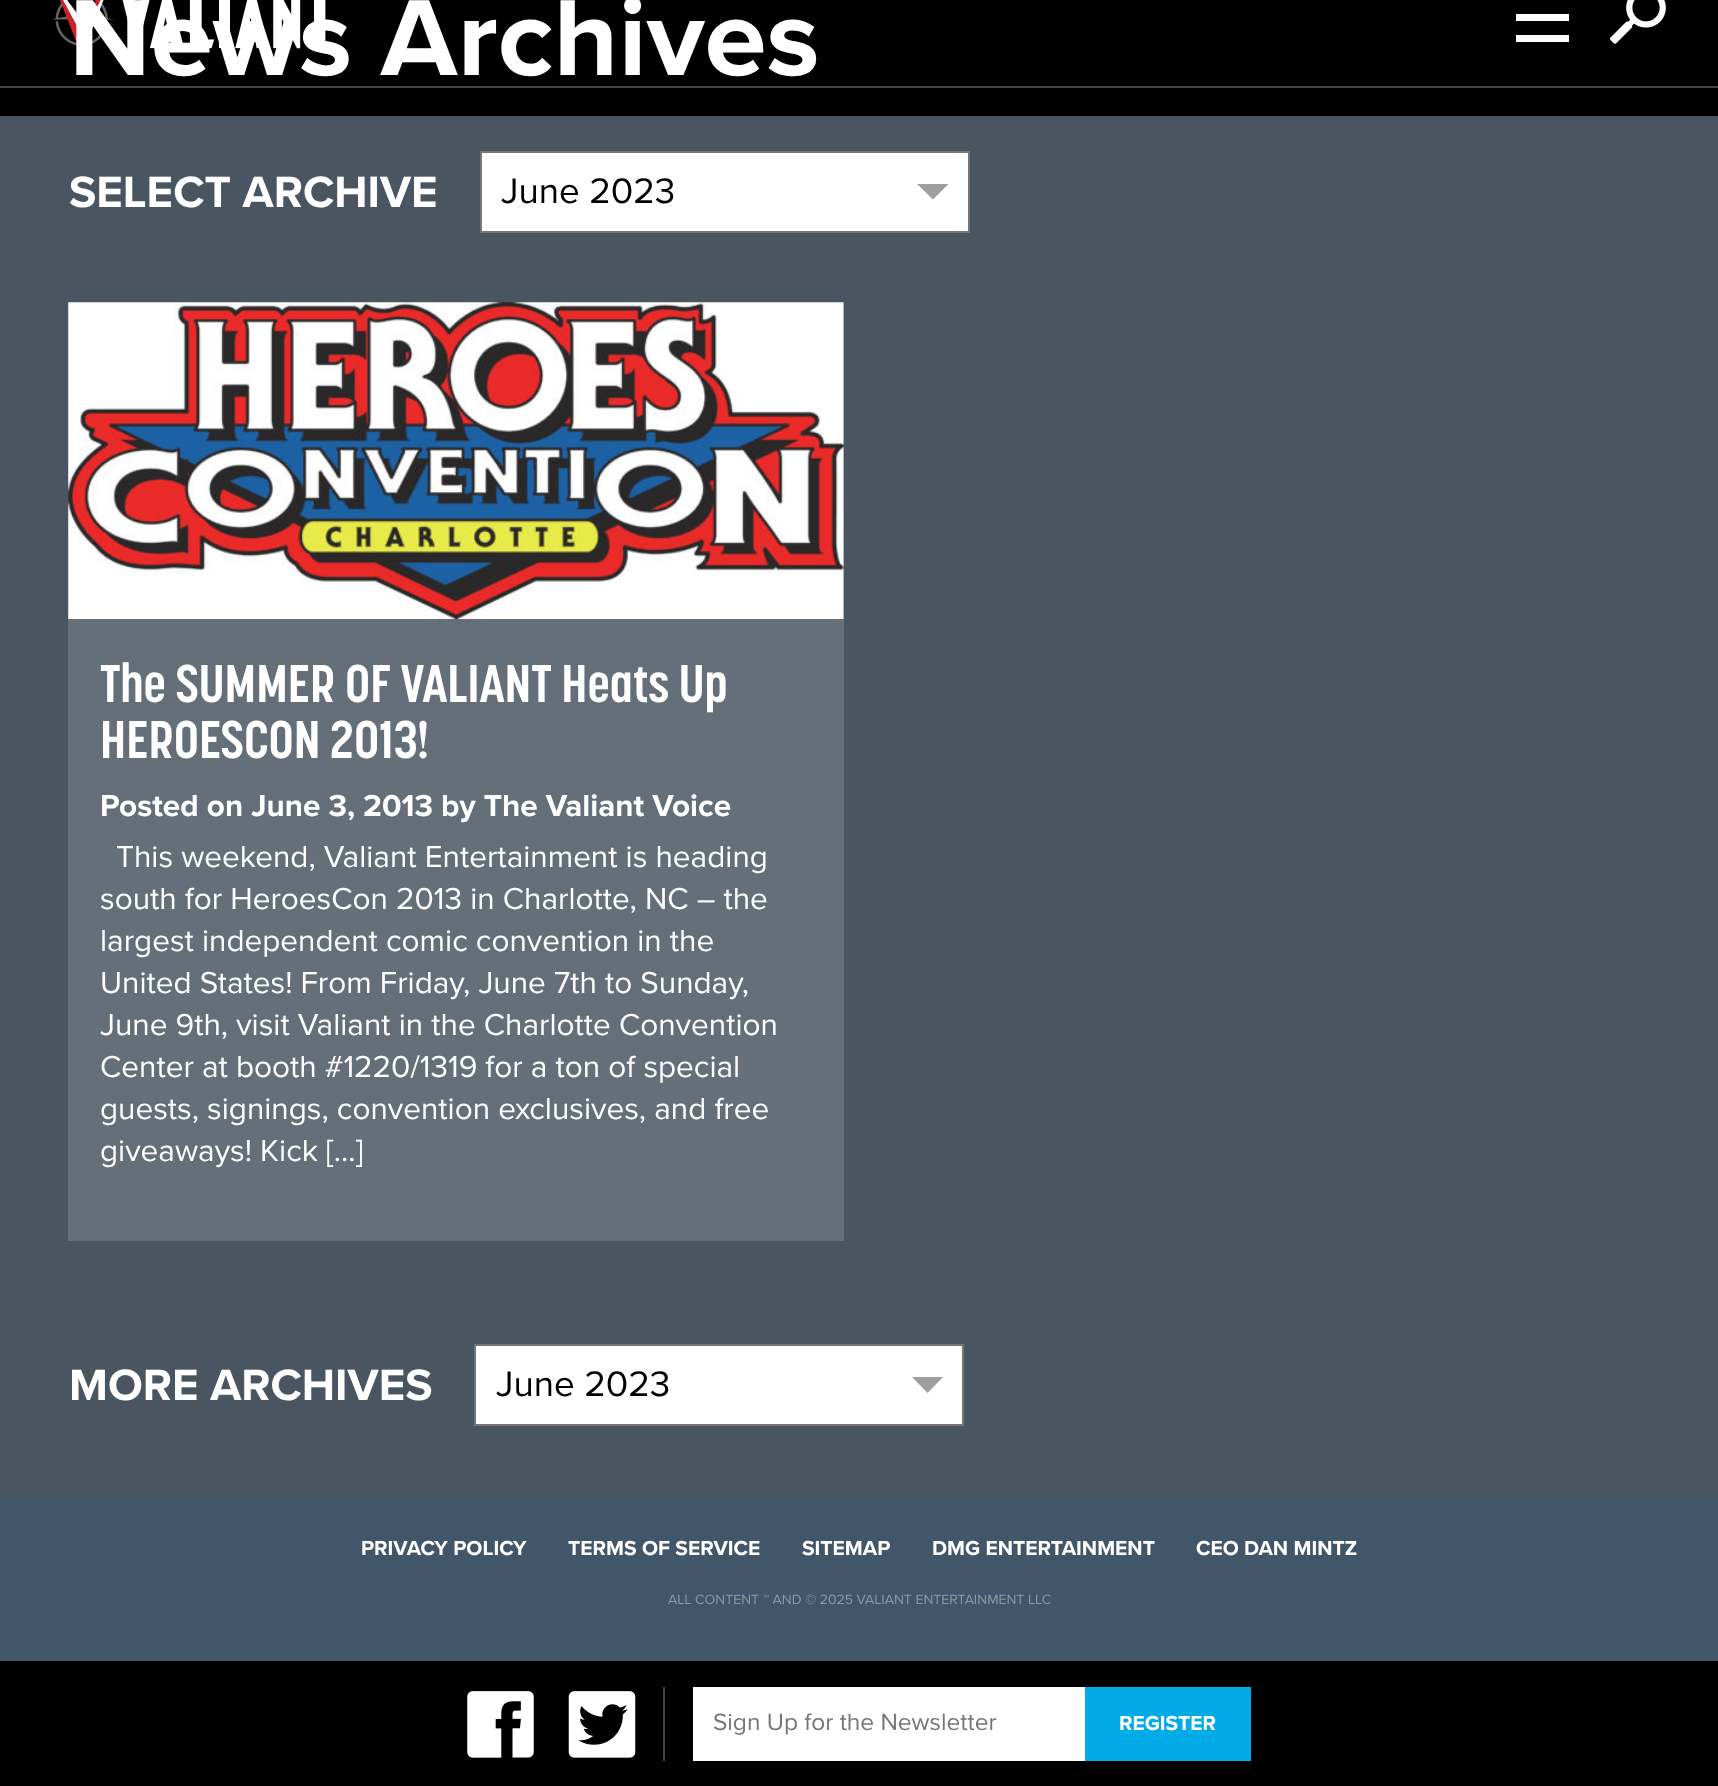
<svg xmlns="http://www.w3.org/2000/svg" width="1718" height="1786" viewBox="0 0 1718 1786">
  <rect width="100%" height="100%" fill="rgb(73,86,97)"/>
  <rect x="0" y="0" width="1718" height="86" fill="rgb(0,0,0)"/>
  <rect x="0" y="86" width="1718" height="2" fill="rgb(68,68,68)"/>
  <image x="53" y="0" width="280" height="56" href="pic1.png"/>
  <path d="M1516 35H1569V42H1516ZM1516 14H1569V21H1516ZM1516-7H1569V0H1516Z" fill="rgb(255,255,255)"/>
  <image x="1610" y="0" width="56" height="44" href="pic2.png"/>
  <rect x="0" y="88" width="1718" height="28" fill="rgb(0,0,0)"/>
  <text x="69" y="75" font-family="Proxima Nova" font-size="112" font-weight="bold" fill="rgb(255,255,255)">News Archives</text>
  <text x="69" y="207" font-family="Proxima Nova" font-size="45.5" font-weight="bold" fill="rgb(255,255,255)">SELECT ARCHIVE</text>
  <rect x="481" y="152" width="488" height="80" fill="rgb(255,255,255)" stroke="rgb(118,118,118)" stroke-width="2"/>
  <text x="501" y="203" font-family="Proxima Nova" font-size="36.75" fill="rgb(0,0,0)">June 2023</text>
  <path d="M917 184H948.5L933 199.5Z" fill="rgb(158,158,158)"/>
  <rect x="68" y="303" width="776" height="938" fill="rgb(100,111,121)"/>
  <image x="68" y="302" width="776" height="317" href="pic3.png"/>
  <g font-family="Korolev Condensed" font-size="52.5" font-weight="bold" fill="rgb(255,255,255)">
    <text>
      <tspan x="100" y="702">The SUMMER OF VALIANT Heats Up</tspan>
      <tspan x="100" y="758">HEROESCON 2013!</tspan>
    </text>
  </g>
  <text x="100" y="816" font-family="Proxima Nova" font-size="31.5" font-weight="bold" fill="rgb(255,255,255)">Posted on June 3, 2013 by The Valiant Voice</text>
  <g font-family="Proxima Nova" font-size="31.5" fill="rgb(255,255,255)">
    <text x="116" y="867">This weekend, Valiant Entertainment is heading</text>
    <text>
      <tspan x="100" y="909">south for HeroesCon 2013 in Charlotte, NC – the</tspan>
      <tspan x="100" y="951">largest independent comic convention in the</tspan>
      <tspan x="100" y="993">United States! From Friday, June 7th to Sunday,</tspan>
      <tspan x="100" y="1035">June 9th, visit Valiant in the Charlotte Convention</tspan>
      <tspan x="100" y="1077">Center at booth #1220/1319 for a ton of special</tspan>
      <tspan x="100" y="1119">guests, signings, convention exclusives, and free</tspan>
      <tspan x="100" y="1161">giveaways! Kick […]</tspan>
    </text>
  </g>
  <text x="69" y="1400" font-family="Proxima Nova" font-size="45.5" font-weight="bold" fill="rgb(255,255,255)">MORE ARCHIVES</text>
  <rect x="475" y="1345" width="488" height="80" fill="rgb(255,255,255)" stroke="rgb(118,118,118)" stroke-width="2"/>
  <text x="496" y="1396" font-family="Proxima Nova" font-size="36.75" fill="rgb(0,0,0)">June 2023</text>
  <path d="M912 1377H943L927.5 1393Z" fill="rgb(158,158,158)"/>
  <rect x="0" y="1496" width="1718" height="165" fill="rgb(65,86,104)"/>
  <g font-family="Proxima Nova" font-size="21" font-weight="bold" fill="rgb(255,255,255)">
    <text x="361" y="1555">PRIVACY POLICY</text>
    <text x="568" y="1555">TERMS OF SERVICE</text>
    <text x="802" y="1555">SITEMAP</text>
    <text x="932" y="1555">DMG ENTERTAINMENT</text>
    <text x="1196" y="1555">CEO DAN MINTZ</text>
  </g>
  <text x="668" y="1604" font-family="Proxima Nova" font-size="14" fill="rgb(141,154,164)">ALL CONTENT ™ AND © 2025 VALIANT ENTERTAINMENT LLC</text>
  <rect x="0" y="1661" width="1718" height="125" fill="rgb(0,0,0)"/>
  <image x="467" y="1691" width="67" height="67" href="pic4.png"/>
  <image x="568" y="1691" width="68" height="67" href="pic5.png"/>
  <rect x="663" y="1687" width="2" height="74" fill="rgb(68,68,68)"/>
  <rect x="693" y="1687" width="392" height="74" fill="rgb(255,255,255)"/>
  <text x="713" y="1730" font-family="Proxima Nova" font-size="24.5" fill="rgb(117,117,117)">Sign Up for the Newsletter</text>
  <rect x="1085" y="1687" width="166" height="74" fill="rgb(0,171,232)"/>
  <text x="1119" y="1730" font-family="Proxima Nova" font-size="21" font-weight="bold" fill="rgb(255,255,255)">REGISTER</text>
</svg>
